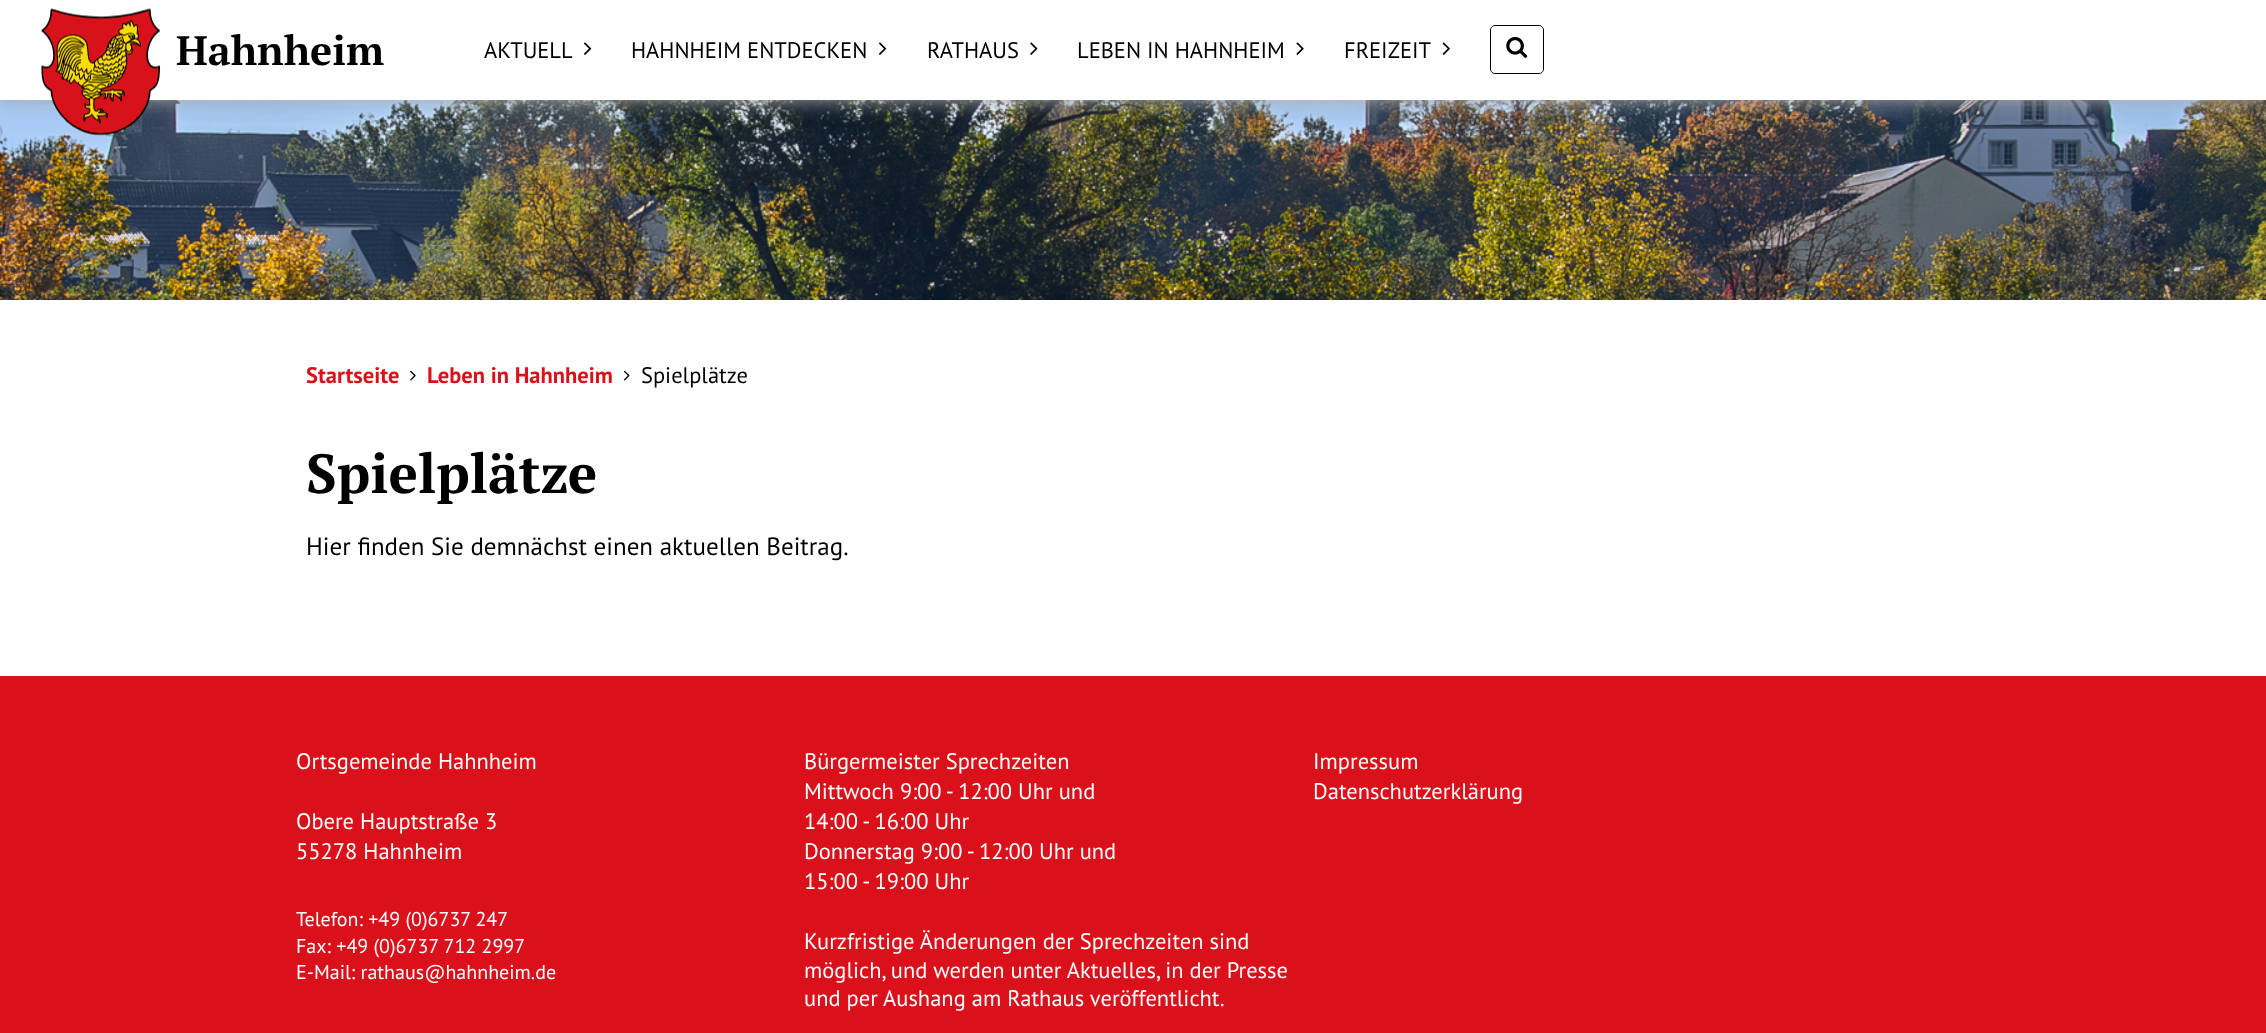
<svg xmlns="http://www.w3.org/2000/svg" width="2266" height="1033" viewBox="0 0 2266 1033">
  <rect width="100%" height="100%" fill="rgb(255,255,255)"/>
  <image x="0" y="100" width="2266" height="200" href="pic7.png"/>
  <rect x="0" y="0" width="2266" height="100" fill="rgb(170,170,170)" filter="blur(9.5px)"/>
  <rect x="0" y="0" width="2266" height="100" fill="rgb(255,255,255)"/>
  <image x="41" y="8" width="119" height="128" href="pic1.png"/>
  <text x="176" y="65" font-family="PT Serif" font-size="41.25" font-weight="bold" fill="rgb(0,0,0)">Hahnheim</text>
  <text x="484" y="58" font-family="PT Sans" font-size="22.5" fill="rgb(0,0,0)">AKTUELL</text>
  <image x="584" y="42" width="8" height="13" href="pic2.png"/>
  <text x="631" y="58" font-family="PT Sans" font-size="22.5" fill="rgb(0,0,0)">HAHNHEIM ENTDECKEN</text>
  <image x="879" y="42" width="8" height="13" href="pic2.png"/>
  <text x="927" y="58" font-family="PT Sans" font-size="22.5" fill="rgb(0,0,0)">RATHAUS</text>
  <image x="1030" y="42" width="8" height="13" href="pic3.png"/>
  <text x="1077" y="58" font-family="PT Sans" font-size="22.5" fill="rgb(0,0,0)">LEBEN IN HAHNHEIM</text>
  <image x="1296" y="42" width="8" height="13" href="pic4.png"/>
  <text x="1344" y="58" font-family="PT Sans" font-size="22.5" fill="rgb(0,0,0)">FREIZEIT</text>
  <image x="1442" y="42" width="8" height="13" href="pic5.png"/>
  <rect x="1490.5" y="25.5" width="53" height="48" rx="4.5" fill="none" stroke="rgb(0,0,0)"/>
  <rect x="1491" y="26" width="52" height="47" fill="rgba(255,255,255,0.15)"/>
  <image x="1506" y="37" width="22" height="21" href="pic6.png"/>
  <text x="306" y="383" font-family="PT Sans" font-size="22.5" font-weight="bold" fill="rgb(218,17,27)">Startseite</text>
  <image x="410" y="370" width="6" height="11" href="pic8.png"/>
  <text x="427" y="383" font-family="PT Sans" font-size="22.5" font-weight="bold" fill="rgb(218,17,27)">Leben in Hahnheim</text>
  <image x="623" y="370" width="7" height="11" href="pic9.png"/>
  <text x="641" y="383" font-family="PT Sans" font-size="22.5" fill="rgb(0,0,0)">Spielplätze</text>
  <text x="306" y="493" font-family="PT Serif" font-size="55" font-weight="bold" fill="rgb(0,0,0)">Spielplätze</text>
  <text x="306" y="555" font-family="PT Sans" font-size="25" fill="rgb(0,0,0)">Hier finden Sie demnächst einen aktuellen Beitrag.</text>
  <rect x="0" y="676" width="2266" height="357" fill="rgb(218,17,27)"/>
  <g font-family="PT Sans" font-size="22.5" fill="rgb(255,255,255)">
    <text x="296" y="769">Ortsgemeinde Hahnheim</text>
    <text>
      <tspan x="296" y="829">Obere Hauptstraße 3</tspan>
      <tspan x="296" y="859">55278 Hahnheim</tspan>
    </text>
  </g>
  <g font-family="PT Sans" font-size="20" fill="rgb(255,255,255)">
    <text>
      <tspan x="296" y="926">Telefon: +49 (0)6737 247</tspan>
      <tspan x="296" y="953">Fax: +49 (0)6737 712 2997</tspan>
      <tspan x="296" y="979">E-Mail: rathaus@hahnheim.de</tspan>
    </text>
  </g>
  <g font-family="PT Sans" font-size="22.5" fill="rgb(255,255,255)">
    <text>
      <tspan x="804" y="769">Bürgermeister Sprechzeiten</tspan>
      <tspan x="804" y="799">Mittwoch 9:00 - 12:00 Uhr und</tspan>
      <tspan x="804" y="829">14:00 - 16:00 Uhr</tspan>
      <tspan x="804" y="859">Donnerstag 9:00 - 12:00 Uhr und</tspan>
      <tspan x="804" y="889">15:00 - 19:00 Uhr</tspan>
    </text>
    <text>
      <tspan x="804" y="949">Kurzfristige Änderungen der Sprechzeiten sind</tspan>
      <tspan x="804" y="978">möglich, und werden unter Aktuelles, in der Presse</tspan>
      <tspan x="804" y="1006">und per Aushang am Rathaus veröffentlicht.</tspan>
    </text>
    <text>
      <tspan x="1313" y="769">Impressum</tspan>
      <tspan x="1313" y="799">Datenschutzerklärung</tspan>
    </text>
  </g>
</svg>
